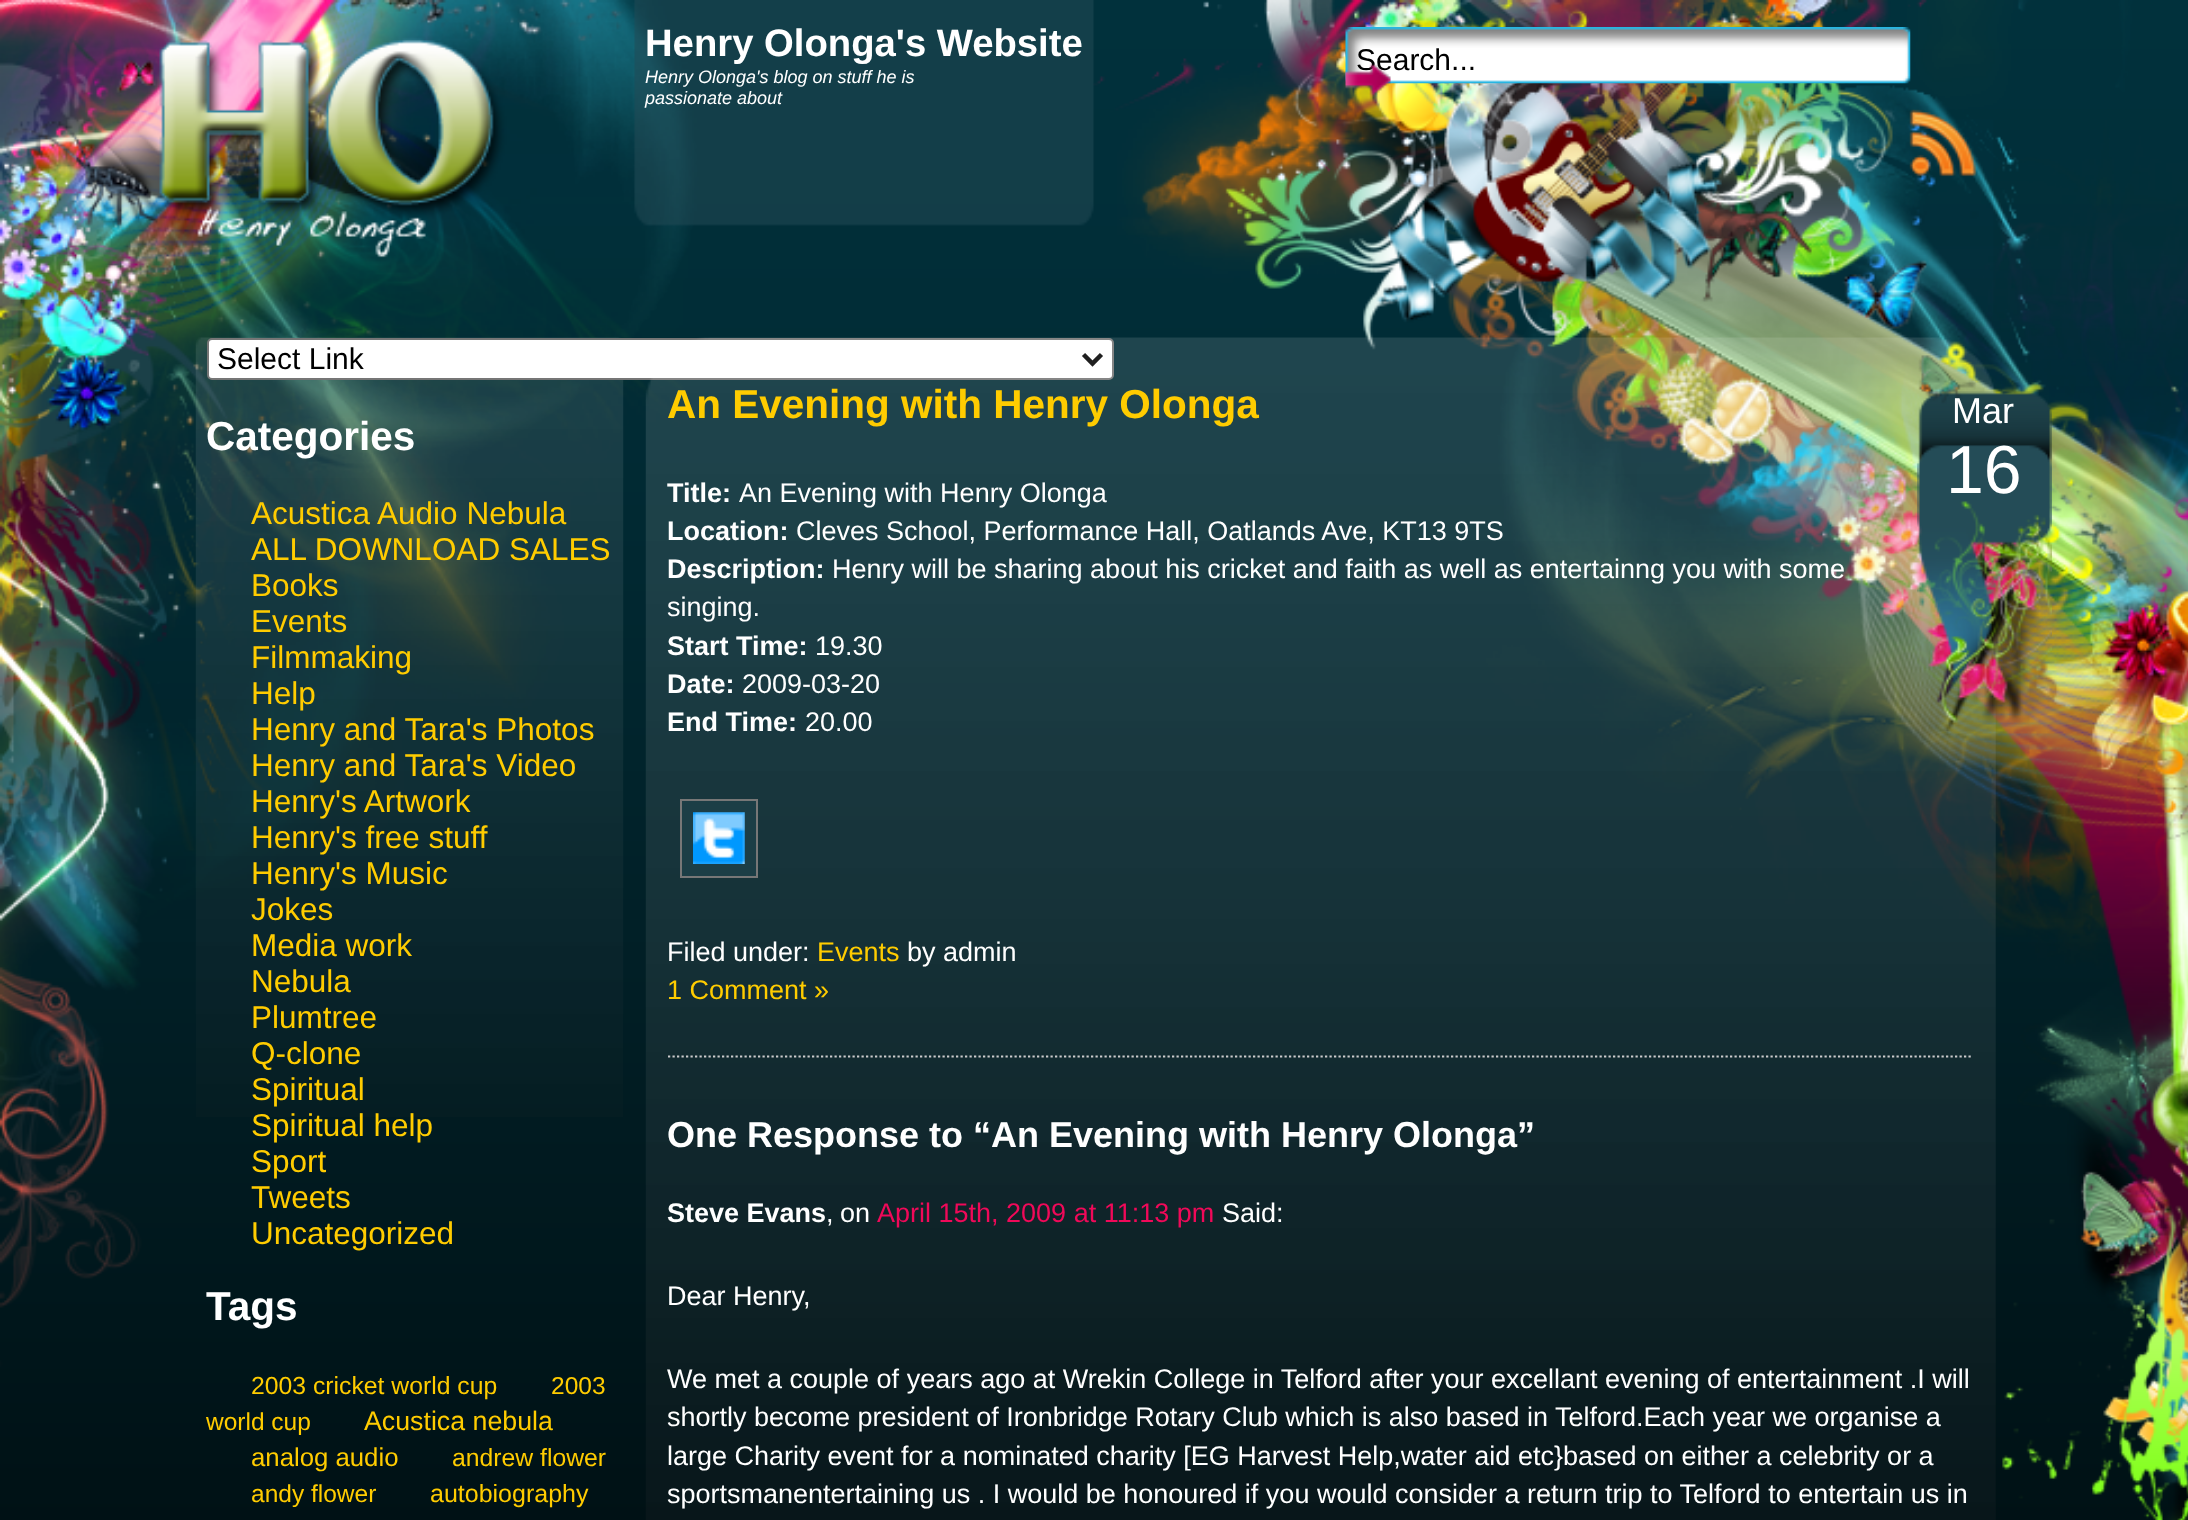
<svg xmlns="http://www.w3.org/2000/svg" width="2188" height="1520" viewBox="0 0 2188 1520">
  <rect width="100%" height="100%" fill="rgb(255,255,255)"/>
  <image x="0" y="0" width="2188" height="1520" href="pic1.png"/>
  <text x="645" y="56" font-family="Liberation Sans" font-size="38.25" font-weight="bold" fill="rgb(255,255,255)">Henry Olonga's Website</text>
  <g font-family="Liberation Sans" font-size="18" font-style="italic" fill="rgb(255,255,255)">
    <text>
      <tspan x="645" y="83">Henry Olonga's blog on stuff he is</tspan>
      <tspan x="645" y="104">passionate about</tspan>
    </text>
  </g>
  <image x="1909" y="109" width="68" height="68" href="pic2.png"/>
  <image x="195" y="337" width="429" height="780" href="pic3.png"/>
  <image x="1345" y="27" width="566" height="57" href="pic4.png"/>
  <text x="1356" y="70" font-family="Liberation Sans" font-size="30" fill="rgb(0,0,0)">Search...</text>
  <image x="1345" y="63" width="46" height="35" href="pic5.png"/>
  <rect x="208" y="339" width="905" height="40" rx="4" fill="rgb(255,255,255)" stroke="rgb(118,118,118)" stroke-width="2"/>
  <path d="M1083.5 354.5L1092.5 363.5L1101.5 354.5" fill="none" stroke="rgb(0,0,0)" stroke-width="4.5"/>
  <text x="217" y="369" font-family="Liberation Sans" font-size="30" fill="rgb(0,0,0)">Select Link</text>
  <text x="206" y="450" font-family="Liberation Sans" font-size="40.5" font-weight="bold" fill="rgb(255,255,255)">Categories</text>
  <g font-family="Liberation Sans" font-size="31.5" fill="rgb(255,204,0)">
    <text>
      <tspan x="251" y="524">Acustica Audio Nebula</tspan>
      <tspan x="251" y="560">ALL DOWNLOAD SALES</tspan>
      <tspan x="251" y="596">Books</tspan>
      <tspan x="251" y="632">Events</tspan>
      <tspan x="251" y="668">Filmmaking</tspan>
      <tspan x="251" y="704">Help</tspan>
      <tspan x="251" y="740">Henry and Tara's Photos</tspan>
      <tspan x="251" y="776">Henry and Tara's Video</tspan>
      <tspan x="251" y="812">Henry's Artwork</tspan>
      <tspan x="251" y="848">Henry's free stuff</tspan>
      <tspan x="251" y="884">Henry's Music</tspan>
      <tspan x="251" y="920">Jokes</tspan>
      <tspan x="251" y="956">Media work</tspan>
      <tspan x="251" y="992">Nebula</tspan>
      <tspan x="251" y="1028">Plumtree</tspan>
      <tspan x="251" y="1064">Q-clone</tspan>
      <tspan x="251" y="1100">Spiritual</tspan>
      <tspan x="251" y="1136">Spiritual help</tspan>
      <tspan x="251" y="1172">Sport</tspan>
      <tspan x="251" y="1208">Tweets</tspan>
      <tspan x="251" y="1244">Uncategorized</tspan>
    </text>
  </g>
  <text x="206" y="1320" font-family="Liberation Sans" font-size="40.5" font-weight="bold" fill="rgb(255,255,255)">Tags</text>
  <text x="251" y="1394" font-family="Liberation Sans" font-size="24.75" fill="rgb(255,204,0)">2003 cricket world cup</text>
  <g font-family="Liberation Sans" font-size="24.5" fill="rgb(255,204,0)">
    <text x="551" y="1394">2003</text>
    <text x="206" y="1430">world cup</text>
  </g>
  <text x="364" y="1430" font-family="Liberation Sans" font-size="26.75" fill="rgb(255,204,0)">Acustica nebula</text>
  <text x="251" y="1466" font-family="Liberation Sans" font-size="25.75" fill="rgb(255,204,0)">analog audio</text>
  <text x="452" y="1466" font-family="Liberation Sans" font-size="24.75" fill="rgb(255,204,0)">andrew flower</text>
  <text x="251" y="1502" font-family="Liberation Sans" font-size="24.5" fill="rgb(255,204,0)">andy flower</text>
  <text x="430" y="1502" font-family="Liberation Sans" font-size="25" fill="rgb(255,204,0)">autobiography</text>
  <image x="645" y="337" width="1351" height="1183" href="pic6.png"/>
  <text x="667" y="418" font-family="Liberation Sans" font-size="40.5" font-weight="bold" fill="rgb(255,204,0)">An Evening with Henry Olonga</text>
  <text x="667" y="502" font-family="Liberation Sans" font-size="27" font-weight="bold" fill="rgb(255,255,255)">Title:</text>
  <text x="739" y="502" font-family="Liberation Sans" font-size="27" fill="rgb(255,255,255)">An Evening with Henry Olonga</text>
  <text x="667" y="540" font-family="Liberation Sans" font-size="27" font-weight="bold" fill="rgb(255,255,255)">Location:</text>
  <text x="796" y="540" font-family="Liberation Sans" font-size="27" fill="rgb(255,255,255)">Cleves School, Performance Hall, Oatlands Ave, KT13 9TS</text>
  <text x="667" y="578" font-family="Liberation Sans" font-size="27" font-weight="bold" fill="rgb(255,255,255)">Description:</text>
  <g font-family="Liberation Sans" font-size="27" fill="rgb(255,255,255)">
    <text x="832" y="578">Henry will be sharing about his cricket and faith as well as entertainng you with some</text>
    <text x="667" y="616">singing.</text>
  </g>
  <text x="667" y="655" font-family="Liberation Sans" font-size="27" font-weight="bold" fill="rgb(255,255,255)">Start Time:</text>
  <text x="815" y="655" font-family="Liberation Sans" font-size="27" fill="rgb(255,255,255)">19.30</text>
  <text x="667" y="693" font-family="Liberation Sans" font-size="27" font-weight="bold" fill="rgb(255,255,255)">Date:</text>
  <text x="742" y="693" font-family="Liberation Sans" font-size="27" fill="rgb(255,255,255)">2009-03-20</text>
  <text x="667" y="731" font-family="Liberation Sans" font-size="27" font-weight="bold" fill="rgb(255,255,255)">End Time:</text>
  <text x="805" y="731" font-family="Liberation Sans" font-size="27" fill="rgb(255,255,255)">20.00</text>
  <rect x="681" y="800" width="76" height="77" fill="rgb(28,62,70)" stroke="rgb(119,119,119)" stroke-width="2"/>
  <image x="693" y="812" width="52" height="52" href="pic7.png"/>
  <text x="667" y="961" font-family="Liberation Sans" font-size="27" fill="rgb(255,255,255)">Filed under:</text>
  <text x="817" y="961" font-family="Liberation Sans" font-size="27" fill="rgb(255,204,0)">Events</text>
  <text x="907" y="961" font-family="Liberation Sans" font-size="27" fill="rgb(255,255,255)">by admin</text>
  <text x="667" y="999" font-family="Liberation Sans" font-size="27" fill="rgb(255,204,0)">1 Comment »</text>
  <path d="M668 1056.5H1973" fill="none" stroke="rgb(204,204,204)" stroke-width="2.2" stroke-dasharray="2.25 2.25"/>
  <text x="667" y="1147" font-family="Liberation Sans" font-size="36" font-weight="bold" fill="rgb(255,255,255)">One Response to “An Evening with Henry Olonga”</text>
  <text x="667" y="1222" font-family="Liberation Sans" font-size="27" font-weight="bold" fill="rgb(255,255,255)">Steve Evans</text>
  <text x="826" y="1222" word-spacing="-1" font-family="Liberation Sans" font-size="27" fill="rgb(255,255,255)">, on</text>
  <text x="877" y="1222" font-family="Liberation Sans" font-size="27" fill="rgb(240,9,89)">April 15th, 2009 at 11:13 pm</text>
  <g font-family="Liberation Sans" font-size="27" fill="rgb(255,255,255)">
    <text x="1222" y="1222">Said:</text>
    <text x="667" y="1305">Dear Henry,</text>
    <text>
      <tspan x="667" y="1388">We met a couple of years ago at Wrekin College in Telford after your excellant evening of entertainment .I will</tspan>
      <tspan x="667" y="1426">shortly become president of Ironbridge Rotary Club which is also based in Telford.Each year we organise a</tspan>
      <tspan x="667" y="1465">large Charity event for a nominated charity [EG Harvest Help,water aid etc}based on either a celebrity or a</tspan>
      <tspan x="667" y="1503">sportsmanentertaining us . I would be honoured if you would consider a return trip to Telford to entertain us in</tspan>
    </text>
  </g>
  <image x="1917" y="355" width="135" height="377" href="pic8.png"/>
  <text x="1952" y="423" font-family="Liberation Sans" font-size="36" fill="rgb(255,255,255)">Mar</text>
  <text x="1946" y="493" font-family="Liberation Sans" font-size="68" fill="rgb(255,255,255)">16</text>
</svg>
